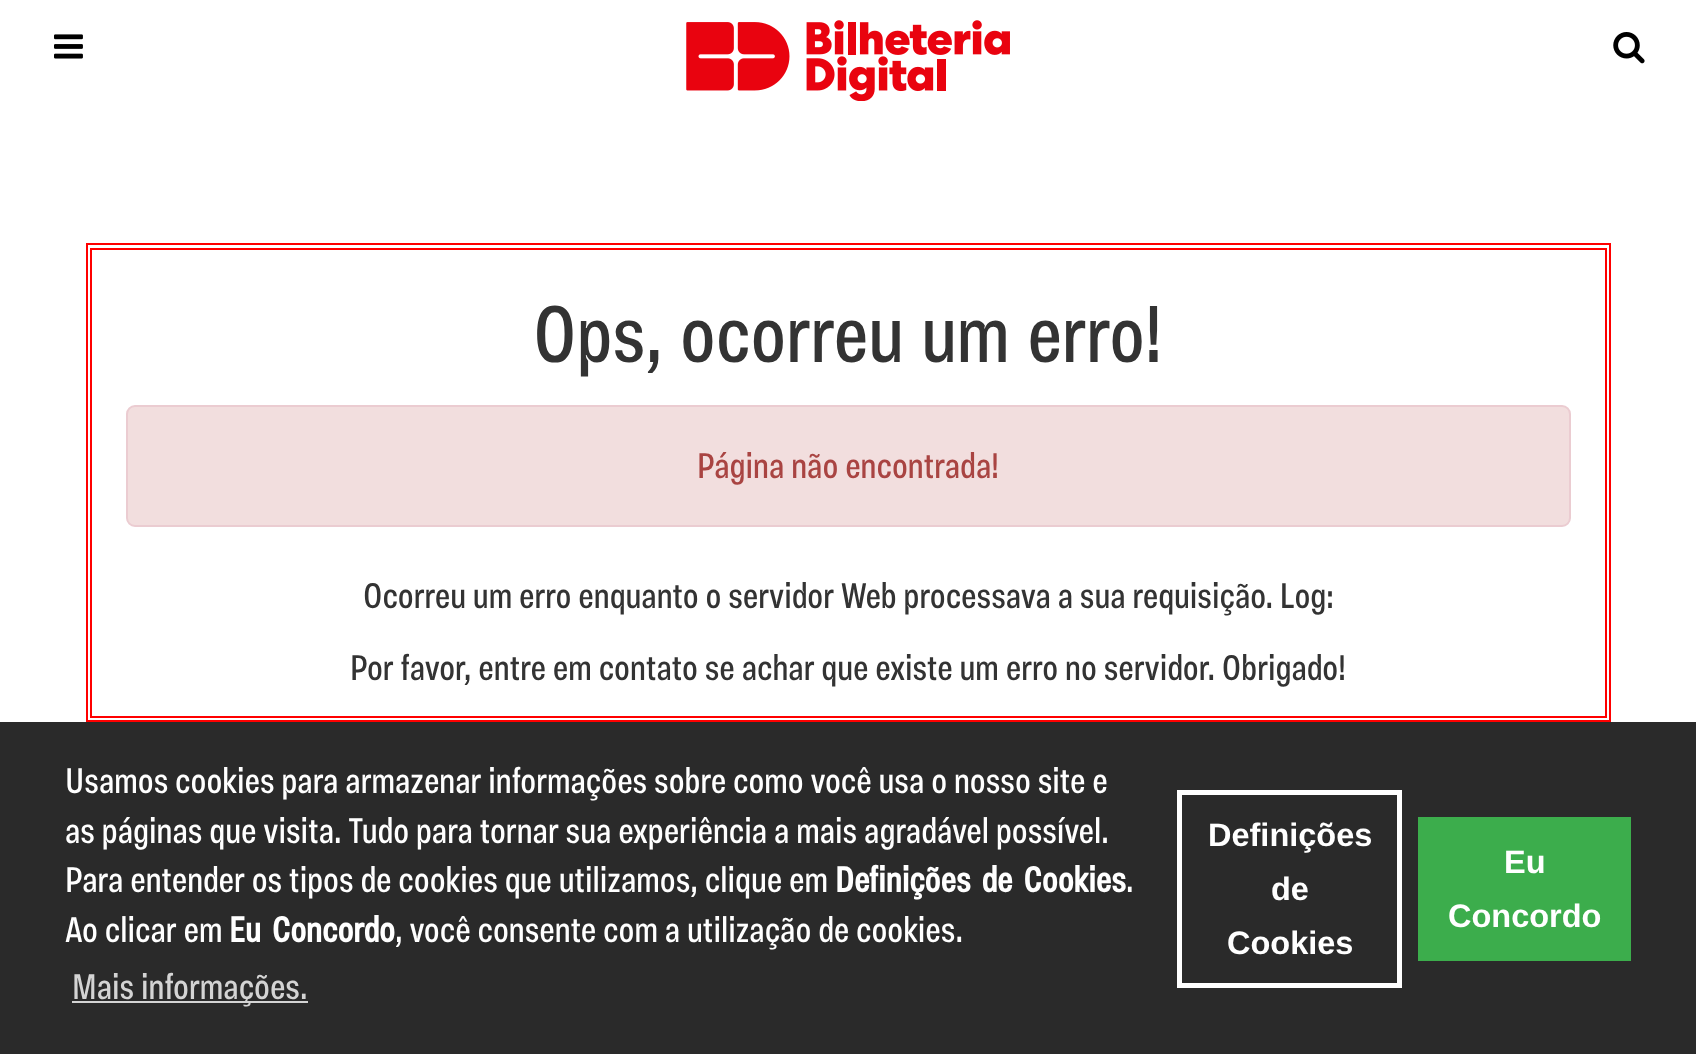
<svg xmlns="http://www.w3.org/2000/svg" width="1696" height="1054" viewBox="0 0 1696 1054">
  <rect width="100%" height="100%" fill="rgb(255,255,255)"/>
  <image x="54" y="34" width="29" height="25" href="pic1.png"/>
  <image x="686" y="20" width="324" height="81" href="pic2.png"/>
  <image x="1613" y="32" width="32" height="32" href="pic3.png"/>
  <rect x="87" y="244" width="1523" height="477" fill="none" stroke="rgb(255,0,0)" stroke-width="2"/>
  <rect x="91" y="249" width="1515" height="468" fill="none" stroke="rgb(255,0,0)" stroke-width="2"/>
  <text x="533" y="362" word-spacing="2" font-family="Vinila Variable" font-size="81" fill="rgb(51,51,51)">Ops, ocorreu um erro!</text>
  <rect x="127" y="406" width="1443" height="120" rx="8" fill="rgb(242,222,222)" stroke="rgb(235,204,209)" stroke-width="2"/>
  <text x="697" y="478" font-family="Vinila Variable" font-size="36" fill="rgb(169,68,66)">Página não encontrada!</text>
  <g font-family="Vinila Variable" font-size="36" fill="rgb(51,51,51)">
    <text x="363" y="608">Ocorreu um erro enquanto o servidor Web processava a sua requisição. Log:</text>
    <text x="350" y="680">Por favor, entre em contato se achar que existe um erro no servidor. Obrigado!</text>
  </g>
  <rect x="0" y="722" width="1696" height="332" fill="rgb(42,42,42)"/>
  <g font-family="Vinila Variable" font-size="36" fill="rgb(255,255,255)">
    <text>
      <tspan x="65" y="793">Usamos cookies para armazenar informações sobre como você usa o nosso site e</tspan>
      <tspan x="65" y="843">as páginas que visita. Tudo para tornar sua experiência a mais agradável possível.</tspan>
      <tspan x="65" y="892">Para entender os tipos de cookies que utilizamos, clique em</tspan>
    </text>
  </g>
  <text x="835" y="892" word-spacing="4" font-family="Vinila Variable" font-size="36" font-weight="bold" fill="rgb(255,255,255)">Definições de Cookies</text>
  <g font-family="Vinila Variable" font-size="36" fill="rgb(255,255,255)">
    <text x="1126" y="892">.</text>
    <text x="65" y="942">Ao clicar em</text>
  </g>
  <text x="229" y="942" word-spacing="4" font-family="Vinila Variable" font-size="36" font-weight="bold" fill="rgb(255,255,255)">Eu Concordo</text>
  <text x="395" y="942" font-family="Vinila Variable" font-size="36" fill="rgb(255,255,255)">, você consente com a utilização de cookies.</text>
  <rect x="72" y="1001" width="236" height="2" fill="rgb(212,212,212)"/>
  <text x="72" y="999" font-family="Vinila Variable" font-size="36" fill="rgb(212,212,212)">Mais informações.</text>
  <rect x="1179.5" y="792.5" width="220" height="193" fill="none" stroke="rgb(255,255,255)" stroke-width="5"/>
  <g font-family="Liberation Sans" font-size="32.5" font-weight="bold" fill="rgb(255,255,255)">
    <text x="1208" y="846">Definições</text>
    <text x="1271" y="900">de</text>
    <text x="1227" y="954">Cookies</text>
  </g>
  <rect x="1418" y="817" width="213" height="144" fill="rgb(60,173,76)"/>
  <g font-family="Liberation Sans" font-size="32.5" font-weight="bold" fill="rgb(255,255,255)">
    <text x="1504" y="873">Eu</text>
    <text x="1448" y="927">Concordo</text>
  </g>
</svg>
